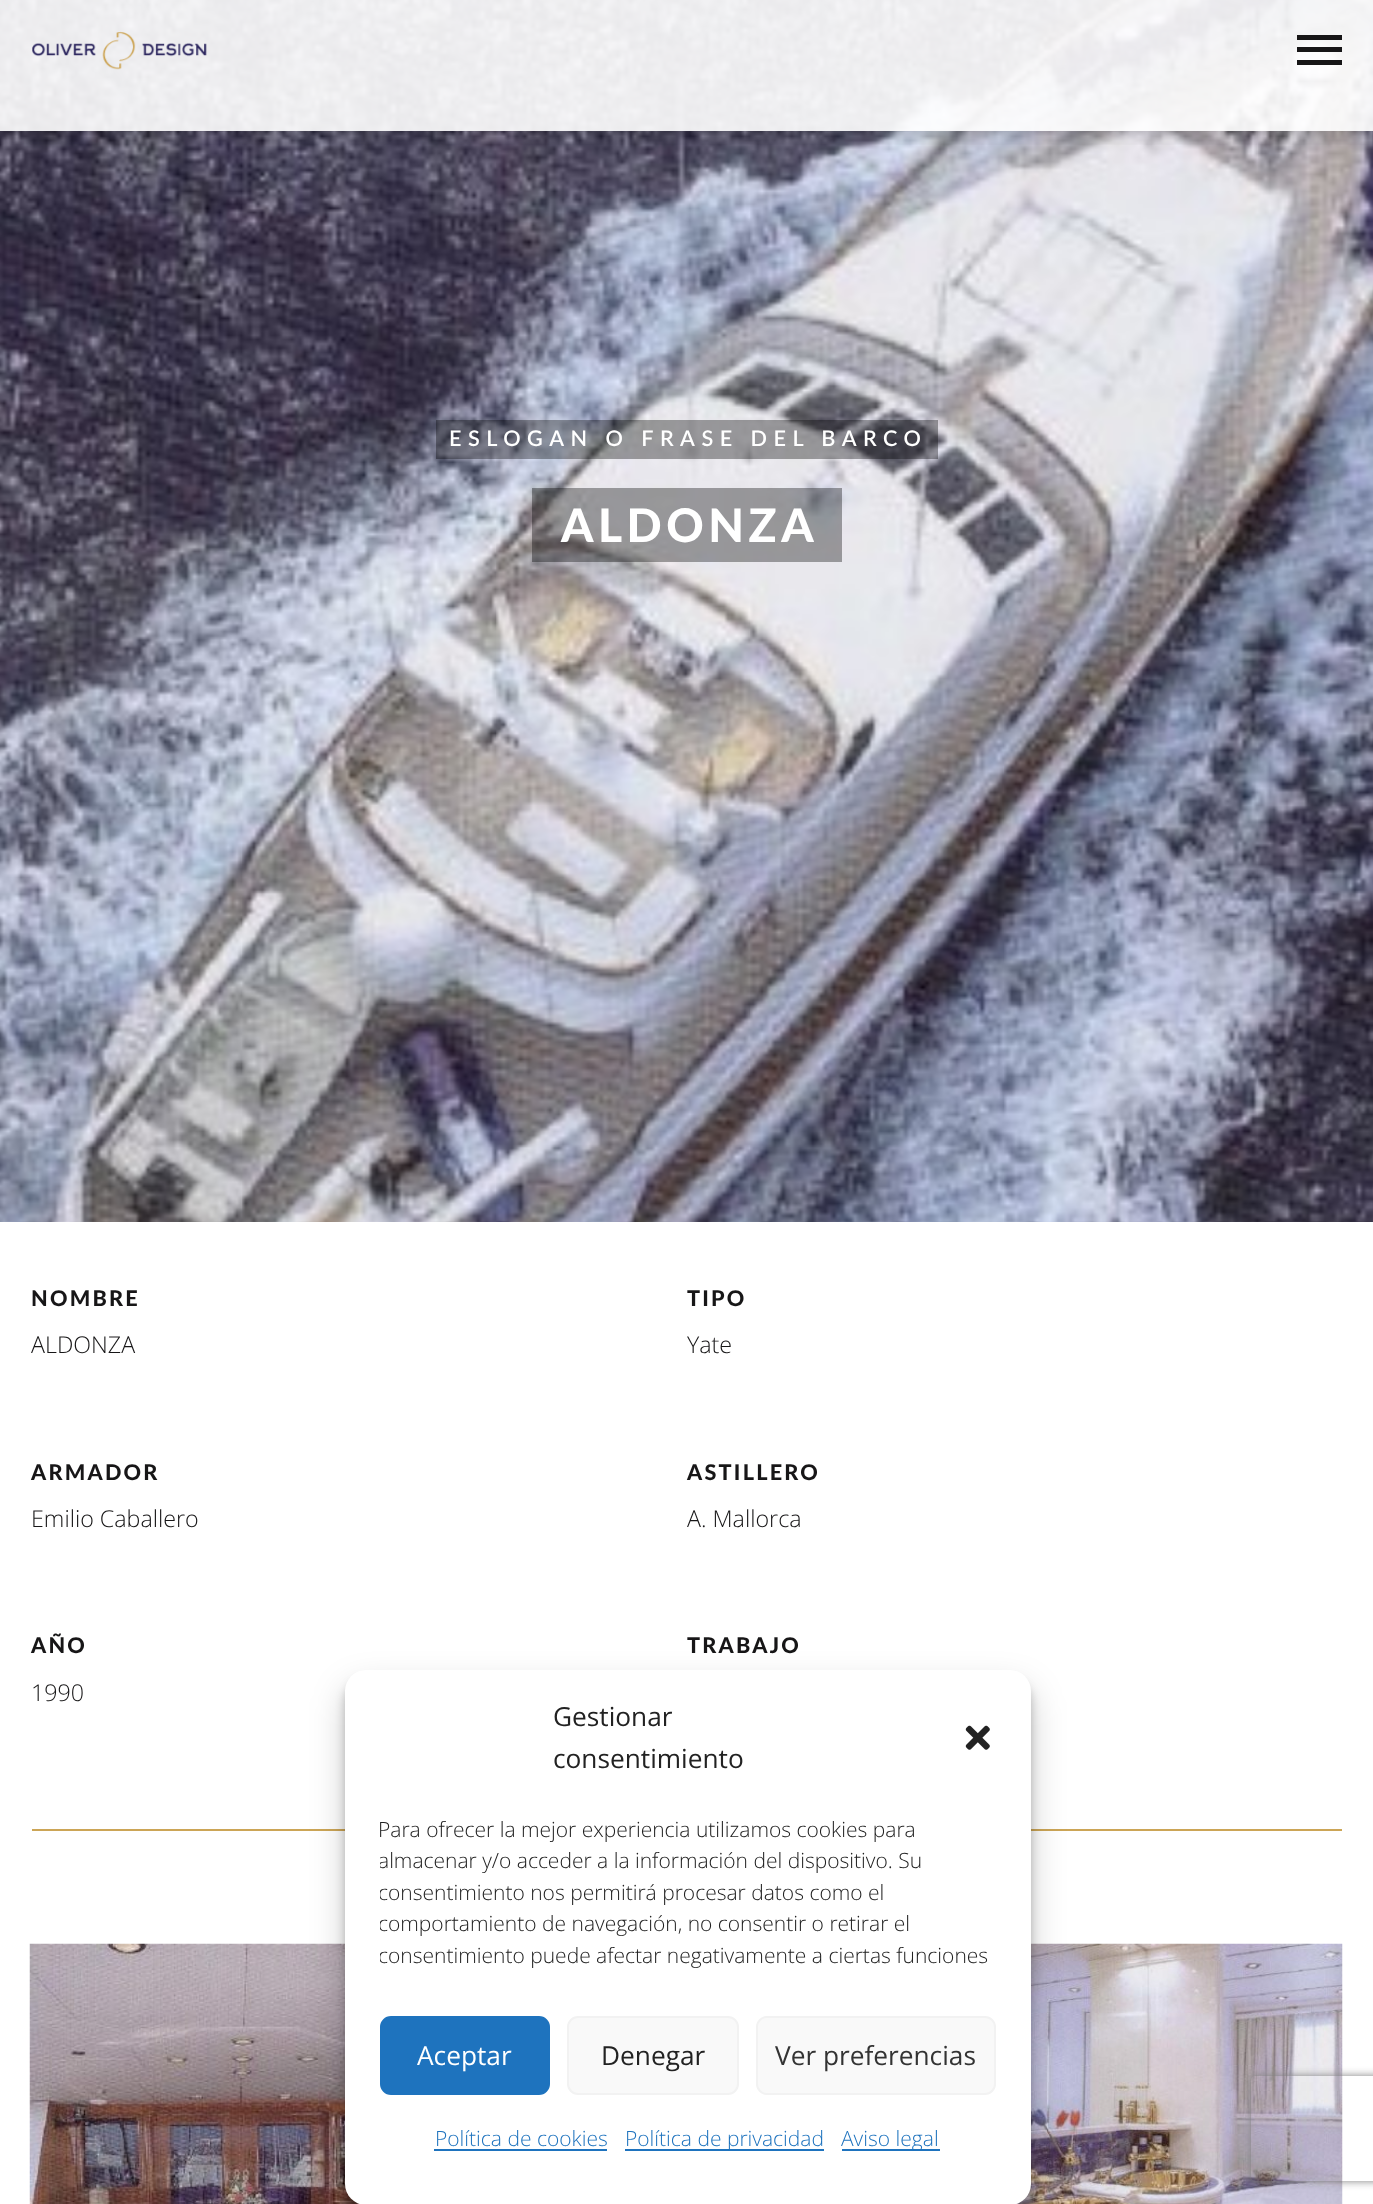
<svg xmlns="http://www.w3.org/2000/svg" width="1373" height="2204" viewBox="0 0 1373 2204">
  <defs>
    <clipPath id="clip1"><rect x="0" y="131" width="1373" height="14"/></clipPath>
    <clipPath id="clip2"><rect x="380" y="1815" width="616" height="166"/></clipPath>
    <clipPath id="clip3"><path d="M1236 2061H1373V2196H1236ZM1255 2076H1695C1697 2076 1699 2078 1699 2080V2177C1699 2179 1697 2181 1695 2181H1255C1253 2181 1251 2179 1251 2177V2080C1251 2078 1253 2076 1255 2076Z" clip-rule="evenodd"/></clipPath>
  </defs>
  <rect width="100%" height="100%" fill="rgb(255,255,255)"/>
  <image x="0" y="0" width="1373" height="1222" href="pic1.png"/>
  <g clip-path="url(#clip1)">
    <rect x="0" y="0" width="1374" height="131" fill="rgba(0,0,0,0.3)" filter="blur(9px)"/>
  </g>
  <rect x="0" y="0" width="1373" height="131" fill="rgba(255,255,255,0.9)"/>
  <image x="32" y="31" width="175" height="39" href="pic2.png"/>
  <rect x="1297" y="35" width="45" height="5" fill="rgb(23,22,23)"/>
  <rect x="1297" y="47" width="45" height="5" fill="rgb(23,22,23)"/>
  <rect x="1297" y="60" width="45" height="5" fill="rgb(23,22,23)"/>
  <rect x="436" y="420" width="502" height="39" fill="rgba(0,0,0,0.35)"/>
  <text x="449" y="446" font-family="Lato" font-size="21.6" font-weight="600" letter-spacing="6.5" fill="rgb(255,255,255)">ESLOGAN O FRASE DEL BARCO</text>
  <rect x="532" y="488" width="310" height="74" fill="rgba(0,0,0,0.35)"/>
  <text x="561" y="542" font-family="Lato" font-size="46.25" font-weight="900" letter-spacing="4.5" fill="rgb(255,255,255)">ALDONZA</text>
  <text x="31" y="1306" font-family="Lato" font-size="21.6" font-weight="900" letter-spacing="2.25" fill="rgb(23,22,23)">NOMBRE</text>
  <text x="31" y="1353" font-family="Open Sans" font-size="23.25" font-weight="300" fill="rgb(23,22,23)">ALDONZA</text>
  <text x="687" y="1306" font-family="Lato" font-size="21.6" font-weight="900" letter-spacing="2.25" fill="rgb(23,22,23)">TIPO</text>
  <text x="687" y="1353" font-family="Open Sans" font-size="23.25" font-weight="300" fill="rgb(23,22,23)">Yate</text>
  <text x="31" y="1480" font-family="Lato" font-size="21.6" font-weight="900" letter-spacing="2.25" fill="rgb(23,22,23)">ARMADOR</text>
  <text x="31" y="1527" font-family="Open Sans" font-size="23.25" font-weight="300" fill="rgb(23,22,23)">Emilio Caballero</text>
  <text x="687" y="1480" font-family="Lato" font-size="21.6" font-weight="900" letter-spacing="2.25" fill="rgb(23,22,23)">ASTILLERO</text>
  <text x="687" y="1527" font-family="Open Sans" font-size="23.25" font-weight="300" fill="rgb(23,22,23)">A. Mallorca</text>
  <text x="31" y="1653" font-family="Lato" font-size="21.6" font-weight="900" letter-spacing="2.25" fill="rgb(23,22,23)">AÑO</text>
  <text x="31" y="1701" font-family="Open Sans" font-size="23.25" font-weight="300" fill="rgb(23,22,23)">1990</text>
  <text x="687" y="1653" font-family="Lato" font-size="21.6" font-weight="900" letter-spacing="2.25" fill="rgb(23,22,23)">TRABAJO</text>
  <rect x="32" y="1829" width="1310" height="2" fill="rgb(204,165,86)"/>
  <image x="29" y="1943" width="331" height="261" href="pic4.png"/>
  <image x="1016" y="1943" width="327" height="261" href="pic5.png"/>
  <rect x="345" y="1680" width="686" height="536" rx="21" fill="rgba(0,0,0,0.23)" filter="blur(5px)"/>
  <rect x="345" y="1687" width="686" height="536" rx="21" fill="rgba(0,0,0,0.19)" filter="blur(17.5px)"/>
  <rect x="345" y="1670" width="686" height="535" rx="21" fill="rgb(255,255,255)"/>
  <g font-family="Open Sans" font-size="26.25" fill="rgb(34,34,34)">
    <text>
      <tspan x="553" y="1726">Gestionar</tspan>
      <tspan x="553" y="1768">consentimiento</tspan>
    </text>
  </g>
  <image x="965" y="1725" width="25" height="25" href="pic3.png"/>
  <text x="378" y="1837" font-family="Open Sans" font-size="21" font-weight="300" fill="rgb(34,34,34)">Para ofrecer la mejor experiencia utilizamos cookies para</text>
  <g clip-path="url(#clip2)">
    <g font-family="Open Sans" font-size="21" font-weight="300" fill="rgb(34,34,34)">
      <text>
        <tspan x="378" y="1868">almacenar y/o acceder a la información del dispositivo. Su</tspan>
        <tspan x="378" y="1900">consentimiento nos permitirá procesar datos como el</tspan>
        <tspan x="378" y="1931">comportamiento de navegación, no consentir o retirar el</tspan>
        <tspan x="378" y="1963">consentimiento puede afectar negativamente a ciertas funciones</tspan>
      </text>
    </g>
  </g>
  <rect x="381" y="2017" width="168" height="77" rx="10" fill="rgb(30,115,190)" stroke="rgb(30,115,190)" stroke-width="2"/>
  <text x="417" y="2065" font-family="Open Sans" font-size="26.25" fill="rgb(255,255,255)">Aceptar</text>
  <rect x="568" y="2017" width="170" height="77" rx="10" fill="rgb(249,249,249)" stroke="rgb(242,242,242)" stroke-width="2"/>
  <text x="601" y="2065" font-family="Open Sans" font-size="26.25" fill="rgb(34,34,34)">Denegar</text>
  <rect x="757" y="2017" width="238" height="77" rx="10" fill="rgb(249,249,249)" stroke="rgb(242,242,242)" stroke-width="2"/>
  <text x="775" y="2065" font-family="Open Sans" font-size="26.25" fill="rgb(51,51,51)">Ver preferencias</text>
  <text x="435" y="2146" font-family="Open Sans" font-size="21" font-weight="300" fill="rgb(30,115,190)">Política de cookies</text>
  <rect x="434" y="2149" width="173" height="2" fill="rgb(30,115,190)"/>
  <rect x="625" y="2149" width="199" height="2" fill="rgb(30,115,190)"/>
  <text x="625" y="2146" font-family="Open Sans" font-size="21" font-weight="300" fill="rgb(30,115,190)">Política de privacidad</text>
  <rect x="842" y="2149" width="98" height="2" fill="rgb(30,115,190)"/>
  <text x="841" y="2146" font-family="Open Sans" font-size="21" font-weight="300" fill="rgb(30,115,190)">Aviso legal</text>
  <g clip-path="url(#clip3)">
    <rect x="1251" y="2076" width="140" height="105" rx="4" fill="rgb(128,128,128)" filter="blur(4.5px)"/>
  </g>
</svg>
